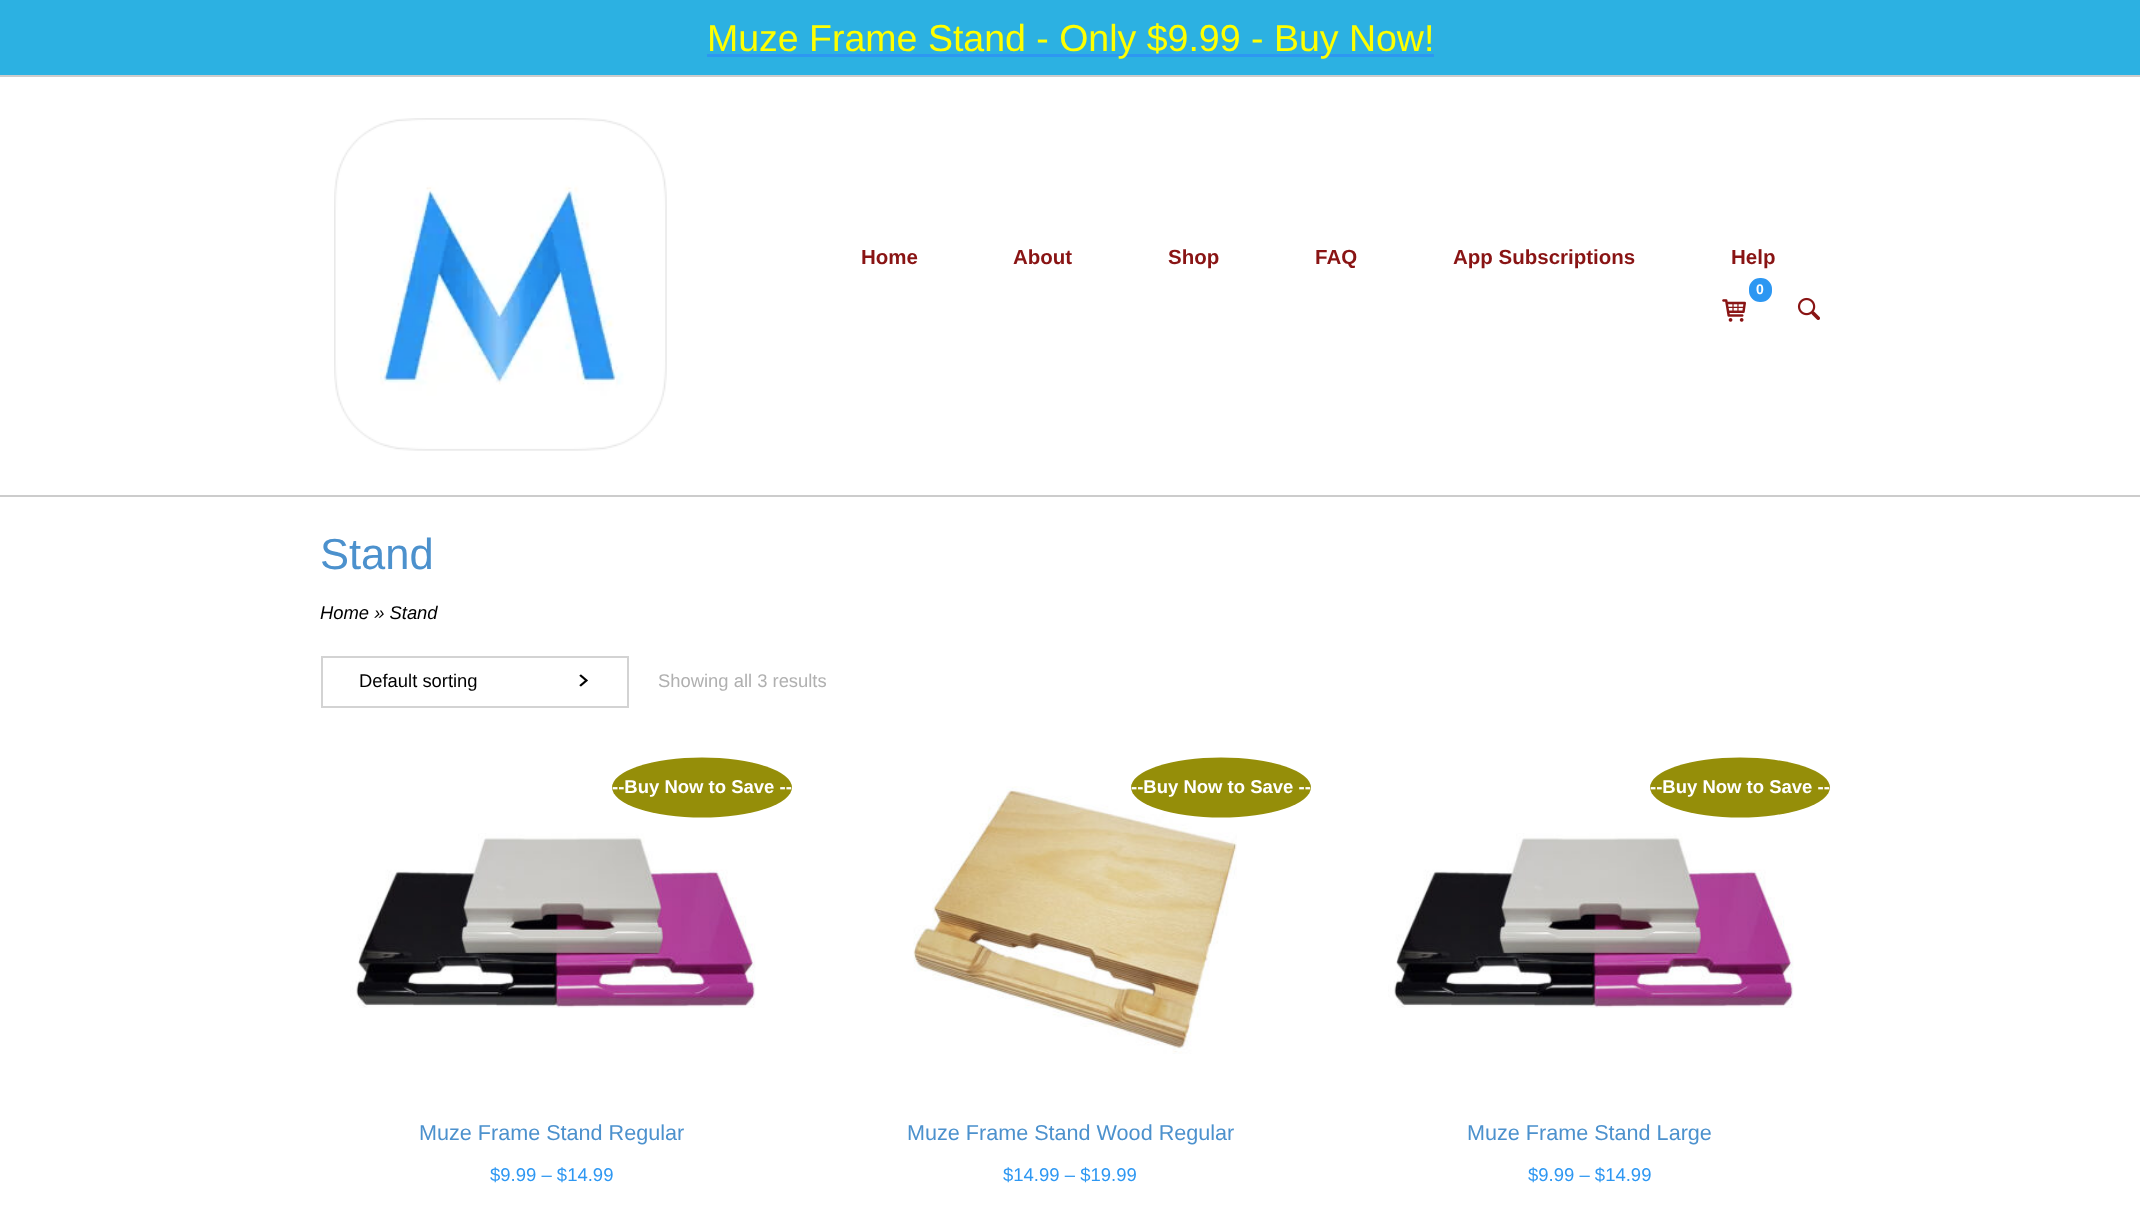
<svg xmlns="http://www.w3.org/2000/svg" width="2140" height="1209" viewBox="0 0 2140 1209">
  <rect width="100%" height="100%" fill="rgb(255,255,255)"/>
  <rect x="0" y="0" width="2140" height="75" fill="rgb(44,177,226)"/>
  <rect x="0" y="75" width="2140" height="2" fill="rgb(204,204,204)"/>
  <rect x="707" y="54" width="727" height="3" fill="rgb(45,151,242)"/>
  <text x="707" y="51" font-family="Liberation Sans" font-size="37.5" fill="rgb(255,255,0)">Muze Frame Stand - Only $9.99 - Buy Now!</text>
  <rect x="0" y="495" width="2140" height="2" fill="rgb(204,204,204)"/>
  <image x="334" y="118" width="333" height="333" href="pic1.png"/>
  <g font-family="Liberation Sans" font-size="20.5" font-weight="bold" fill="rgb(137,20,20)">
    <text x="861" y="264">Home</text>
    <text x="1013" y="264">About</text>
    <text x="1168" y="264">Shop</text>
    <text x="1315" y="264">FAQ</text>
    <text x="1453" y="264">App Subscriptions</text>
    <text x="1731" y="264">Help</text>
  </g>
  <rect x="1747.5" y="276.5" width="26" height="27" rx="12.5" fill="rgb(45,151,242)" stroke="rgb(255,255,255)" stroke-width="3"/>
  <text x="1756" y="294" font-family="Liberation Sans" font-size="14" font-weight="bold" fill="rgb(255,255,255)">0</text>
  <image x="1722" y="299" width="24" height="23" href="pic2.png"/>
  <image x="1797" y="297" width="23" height="23" href="pic3.png"/>
  <text x="320" y="569" font-family="Liberation Sans" font-size="43.5" fill="rgb(76,145,205)">Stand</text>
  <text x="320" y="619" font-family="Liberation Sans" font-size="18.4" font-style="italic" fill="rgb(0,0,0)">Home » Stand</text>
  <rect x="322" y="657" width="306" height="50" fill="none" stroke="rgb(211,211,211)" stroke-width="2"/>
  <text x="359" y="687" font-family="Liberation Sans" font-size="18.4" fill="rgb(0,0,0)">Default sorting</text>
  <image x="579" y="674" width="9" height="13" href="pic4.png"/>
  <text x="658" y="687" font-family="Liberation Sans" font-size="18.4" fill="rgb(176,176,176)">Showing all 3 results</text>
  <ellipse cx="702" cy="787.5" rx="90" ry="30" fill="rgb(149,142,9)"/>
  <text x="612" y="793" font-family="Liberation Sans" font-size="18.5" font-weight="bold" fill="rgb(255,255,255)">--Buy Now to Save --</text>
  <image x="350" y="833" width="406" height="175" href="pic5.png"/>
  <text x="419" y="1140" font-family="Liberation Sans" font-size="21.6" fill="rgb(76,145,205)">Muze Frame Stand Regular</text>
  <text x="490" y="1181" font-family="Liberation Sans" font-size="18.5" fill="rgb(45,151,242)">$9.99 – $14.99</text>
  <image x="913" y="786" width="324" height="268" href="pic6.png"/>
  <ellipse cx="1221" cy="787.5" rx="90" ry="30" fill="rgb(149,142,9)"/>
  <text x="1131" y="793" font-family="Liberation Sans" font-size="18.5" font-weight="bold" fill="rgb(255,255,255)">--Buy Now to Save --</text>
  <text x="907" y="1140" font-family="Liberation Sans" font-size="21.6" fill="rgb(76,145,205)">Muze Frame Stand Wood Regular</text>
  <text x="1003" y="1181" font-family="Liberation Sans" font-size="18.5" fill="rgb(45,151,242)">$14.99 – $19.99</text>
  <ellipse cx="1740" cy="787.5" rx="90" ry="30" fill="rgb(149,142,9)"/>
  <text x="1650" y="793" font-family="Liberation Sans" font-size="18.5" font-weight="bold" fill="rgb(255,255,255)">--Buy Now to Save --</text>
  <image x="1388" y="833" width="406" height="175" href="pic5.png"/>
  <text x="1467" y="1140" font-family="Liberation Sans" font-size="21.6" fill="rgb(76,145,205)">Muze Frame Stand Large</text>
  <text x="1528" y="1181" font-family="Liberation Sans" font-size="18.5" fill="rgb(45,151,242)">$9.99 – $14.99</text>
</svg>
